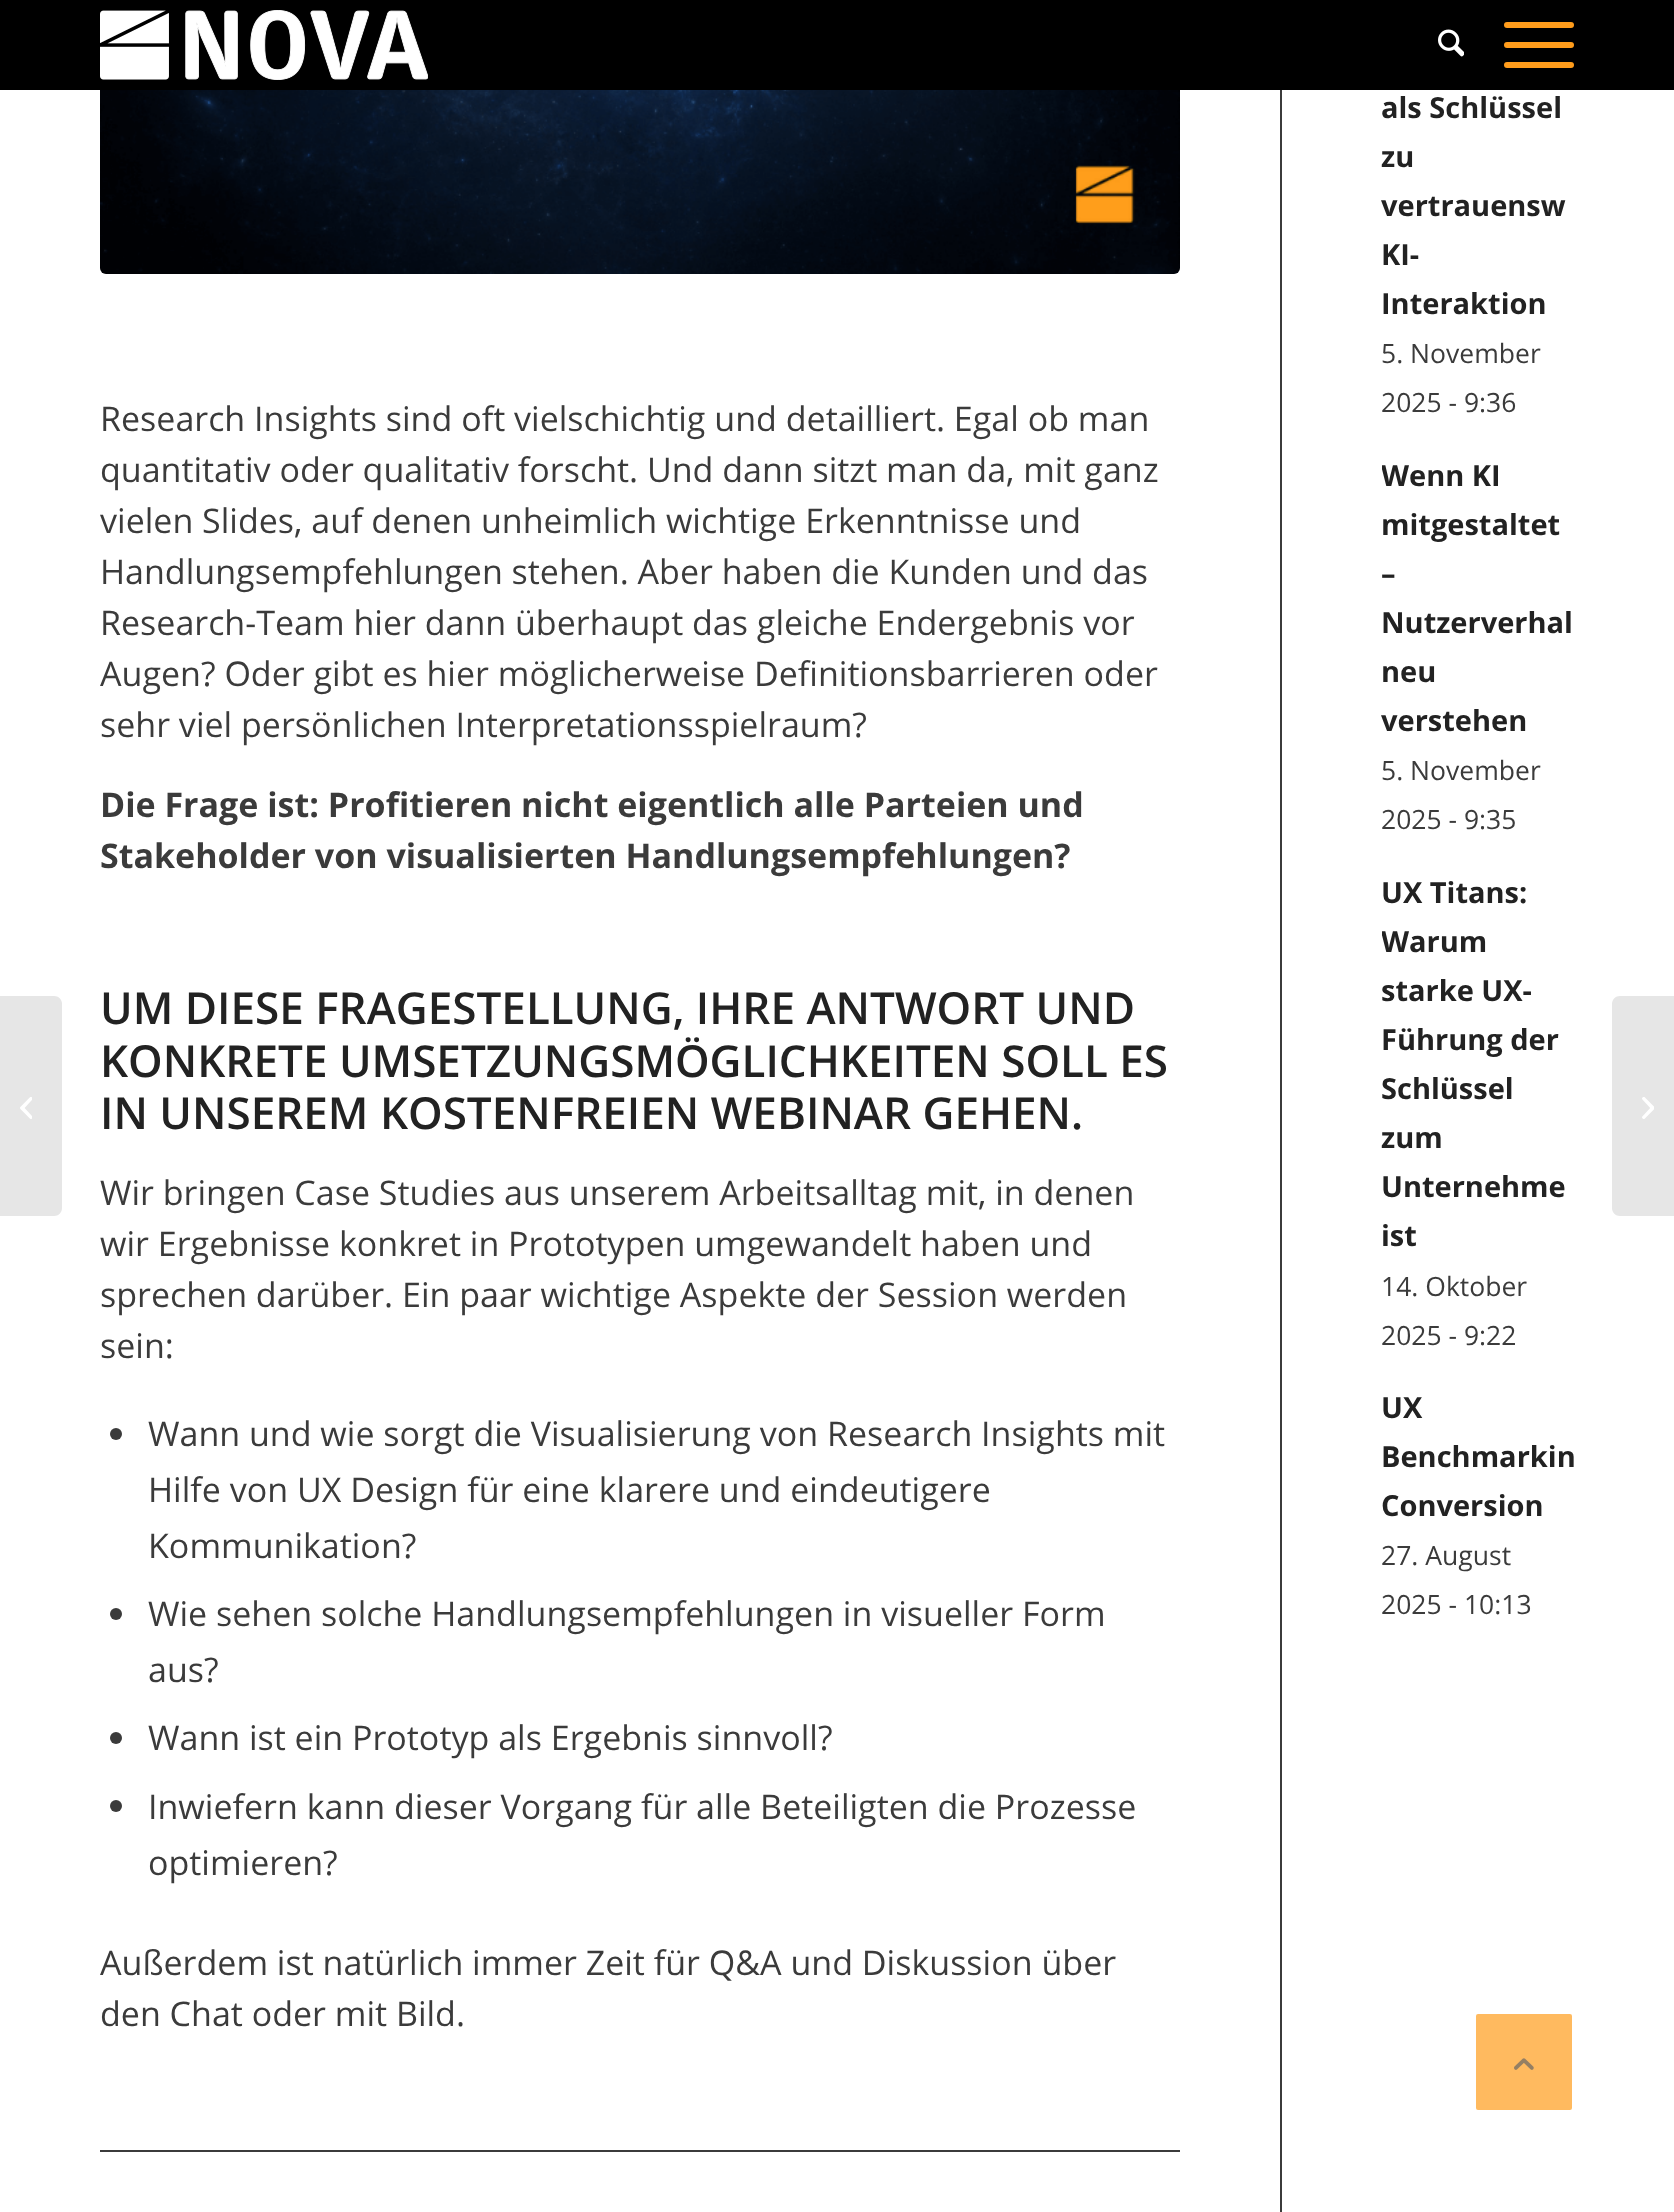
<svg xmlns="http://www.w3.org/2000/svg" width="1674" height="2212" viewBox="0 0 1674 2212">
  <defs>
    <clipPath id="clip1"><rect x="1382" y="452" width="192" height="392"/></clipPath>
    <clipPath id="clip2"><rect x="1382" y="868" width="192" height="492"/></clipPath>
  </defs>
  <rect width="100%" height="100%" fill="rgb(255,255,255)"/>
  <rect x="0" y="0" width="1674" height="90" fill="rgb(0,0,0)"/>
  <image x="100" y="10" width="328" height="70" href="pic1.png"/>
  <image x="1438" y="29" width="26" height="28" href="pic2.png"/>
  <rect x="1504" y="42" width="70" height="6" rx="3" fill="rgb(255,156,27)"/>
  <rect x="1504" y="22" width="70" height="6" rx="3" fill="rgb(255,156,27)"/>
  <rect x="1504" y="62" width="70" height="6" rx="3" fill="rgb(255,156,27)"/>
  <path d="M0 996H54C58.5 996 62 999.5 62 1004V1208C62 1212.5 58.5 1216 54 1216H0Z" fill="rgb(230,230,230)"/>
  <image x="20" y="1097" width="12" height="22" href="pic3.png"/>
  <rect x="1280" y="90" width="2" height="2122" fill="rgb(59,59,59)"/>
  <image x="100" y="90" width="1080" height="184" href="pic4.png"/>
  <g font-family="Open Sans" font-size="34" fill="rgb(59,59,59)">
    <text>
      <tspan x="100" y="431">Research Insights sind oft vielschichtig und detailliert. Egal ob man</tspan>
      <tspan x="100" y="482">quantitativ oder qualitativ forscht. Und dann sitzt man da, mit ganz</tspan>
      <tspan x="100" y="533">vielen Slides, auf denen unheimlich wichtige Erkenntnisse und</tspan>
      <tspan x="100" y="584">Handlungsempfehlungen stehen. Aber haben die Kunden und das</tspan>
      <tspan x="100" y="635">Research-Team hier dann überhaupt das gleiche Endergebnis vor</tspan>
      <tspan x="100" y="686">Augen? Oder gibt es hier möglicherweise Definitionsbarrieren oder</tspan>
      <tspan x="100" y="737">sehr viel persönlichen Interpretationsspielraum?</tspan>
    </text>
  </g>
  <g font-family="Open Sans" font-size="34" font-weight="bold" fill="rgb(59,59,59)">
    <text>
      <tspan x="100" y="817">Die Frage ist: Profitieren nicht eigentlich alle Parteien und</tspan>
      <tspan x="100" y="868">Stakeholder von visualisierten Handlungsempfehlungen?</tspan>
    </text>
  </g>
  <g font-family="Open Sans" font-size="44" font-weight="600" fill="rgb(34,34,34)">
    <text>
      <tspan x="100" y="1024">UM DIESE FRAGESTELLUNG, IHRE ANTWORT UND</tspan>
      <tspan x="100" y="1077">KONKRETE UMSETZUNGSMÖGLICHKEITEN SOLL ES</tspan>
      <tspan x="100" y="1129">IN UNSEREM KOSTENFREIEN WEBINAR GEHEN.</tspan>
    </text>
  </g>
  <g font-family="Open Sans" font-size="34" fill="rgb(59,59,59)">
    <text>
      <tspan x="100" y="1205">Wir bringen Case Studies aus unserem Arbeitsalltag mit, in denen</tspan>
      <tspan x="100" y="1256">wir Ergebnisse konkret in Prototypen umgewandelt haben und</tspan>
      <tspan x="100" y="1307">sprechen darüber. Ein paar wichtige Aspekte der Session werden</tspan>
      <tspan x="100" y="1358">sein:</tspan>
    </text>
  </g>
  <circle cx="116" cy="1434" r="6" fill="rgb(59,59,59)"/>
  <g font-family="Open Sans" font-size="34" fill="rgb(59,59,59)">
    <text>
      <tspan x="148" y="1446">Wann und wie sorgt die Visualisierung von Research Insights mit</tspan>
      <tspan x="148" y="1502">Hilfe von UX Design für eine klarere und eindeutigere</tspan>
      <tspan x="148" y="1558">Kommunikation?</tspan>
    </text>
  </g>
  <circle cx="116" cy="1614" r="6" fill="rgb(59,59,59)"/>
  <g font-family="Open Sans" font-size="34" fill="rgb(59,59,59)">
    <text>
      <tspan x="148" y="1626">Wie sehen solche Handlungsempfehlungen in visueller Form</tspan>
      <tspan x="148" y="1682">aus?</tspan>
    </text>
  </g>
  <circle cx="116" cy="1738" r="6" fill="rgb(59,59,59)"/>
  <text x="148" y="1750" font-family="Open Sans" font-size="34" fill="rgb(59,59,59)">Wann ist ein Prototyp als Ergebnis sinnvoll?</text>
  <circle cx="116" cy="1806" r="6" fill="rgb(59,59,59)"/>
  <g font-family="Open Sans" font-size="34" fill="rgb(59,59,59)">
    <text>
      <tspan x="148" y="1819">Inwiefern kann dieser Vorgang für alle Beteiligten die Prozesse</tspan>
      <tspan x="148" y="1875">optimieren?</tspan>
    </text>
    <text>
      <tspan x="100" y="1975">Außerdem ist natürlich immer Zeit für Q&amp;A und Diskussion über</tspan>
      <tspan x="100" y="2026">den Chat oder mit Bild.</tspan>
    </text>
  </g>
  <rect x="100" y="2150" width="1080" height="2" fill="rgb(59,59,59)"/>
  <g font-family="Open Sans" font-size="29" font-weight="bold" fill="rgb(34,34,34)">
    <text>
      <tspan x="1381" y="118">als Schlüssel</tspan>
      <tspan x="1381" y="167">zu</tspan>
      <tspan x="1381" y="216">vertrauensw</tspan>
      <tspan x="1381" y="265">KI-</tspan>
      <tspan x="1381" y="314">Interaktion</tspan>
    </text>
  </g>
  <g font-family="Open Sans" font-size="26.5" fill="rgb(59,59,59)">
    <text>
      <tspan x="1381" y="363">5. November</tspan>
      <tspan x="1381" y="412">2025 - 9:36</tspan>
    </text>
  </g>
  <g clip-path="url(#clip1)">
    <text x="1381" y="486" font-family="Open Sans" font-size="29" font-weight="bold" fill="rgb(34,34,34)">Wenn KI</text>
  </g>
  <g font-family="Open Sans" font-size="29" font-weight="bold" fill="rgb(34,34,34)">
    <text>
      <tspan x="1381" y="535">mitgestaltet</tspan>
      <tspan x="1381" y="584">–</tspan>
      <tspan x="1381" y="633">Nutzerverhal</tspan>
      <tspan x="1381" y="682">neu</tspan>
      <tspan x="1381" y="731">verstehen</tspan>
    </text>
  </g>
  <g font-family="Open Sans" font-size="26.5" fill="rgb(59,59,59)">
    <text>
      <tspan x="1381" y="780">5. November</tspan>
      <tspan x="1381" y="829">2025 - 9:35</tspan>
    </text>
  </g>
  <text x="1381" y="903" font-family="Open Sans" font-size="29" font-weight="bold" fill="rgb(34,34,34)">UX Titans:</text>
  <g clip-path="url(#clip2)">
    <text x="1381" y="952" font-family="Open Sans" font-size="29" font-weight="bold" fill="rgb(34,34,34)">Warum</text>
  </g>
  <g font-family="Open Sans" font-size="29" font-weight="bold" fill="rgb(34,34,34)">
    <text>
      <tspan x="1381" y="1001">starke UX-</tspan>
      <tspan x="1381" y="1050">Führung der</tspan>
      <tspan x="1381" y="1099">Schlüssel</tspan>
      <tspan x="1381" y="1148">zum</tspan>
      <tspan x="1381" y="1197">Unternehme</tspan>
      <tspan x="1381" y="1246">ist</tspan>
    </text>
  </g>
  <g font-family="Open Sans" font-size="26.5" fill="rgb(59,59,59)">
    <text>
      <tspan x="1381" y="1296">14. Oktober</tspan>
      <tspan x="1381" y="1345">2025 - 9:22</tspan>
    </text>
  </g>
  <g font-family="Open Sans" font-size="29" font-weight="bold" fill="rgb(34,34,34)">
    <text>
      <tspan x="1381" y="1418">UX</tspan>
      <tspan x="1381" y="1467">Benchmarkin</tspan>
      <tspan x="1381" y="1516">Conversion</tspan>
    </text>
  </g>
  <g font-family="Open Sans" font-size="26.5" fill="rgb(59,59,59)">
    <text>
      <tspan x="1381" y="1565">27. August</tspan>
      <tspan x="1381" y="1614">2025 - 10:13</tspan>
    </text>
  </g>
  <path d="M1620 996H1674V1216H1620C1615.5 1216 1612 1212.5 1612 1208V1004C1612 999.5 1615.5 996 1620 996Z" fill="rgb(230,230,230)"/>
  <image x="1642" y="1097" width="12" height="22" href="pic5.png"/>
  <rect x="1475" y="2013" width="98" height="98" rx="3" fill="rgb(255,186,95)" stroke="rgb(255,255,255)" stroke-width="2"/>
  <image x="1514" y="2058" width="20" height="12" href="pic6.png"/>
</svg>
